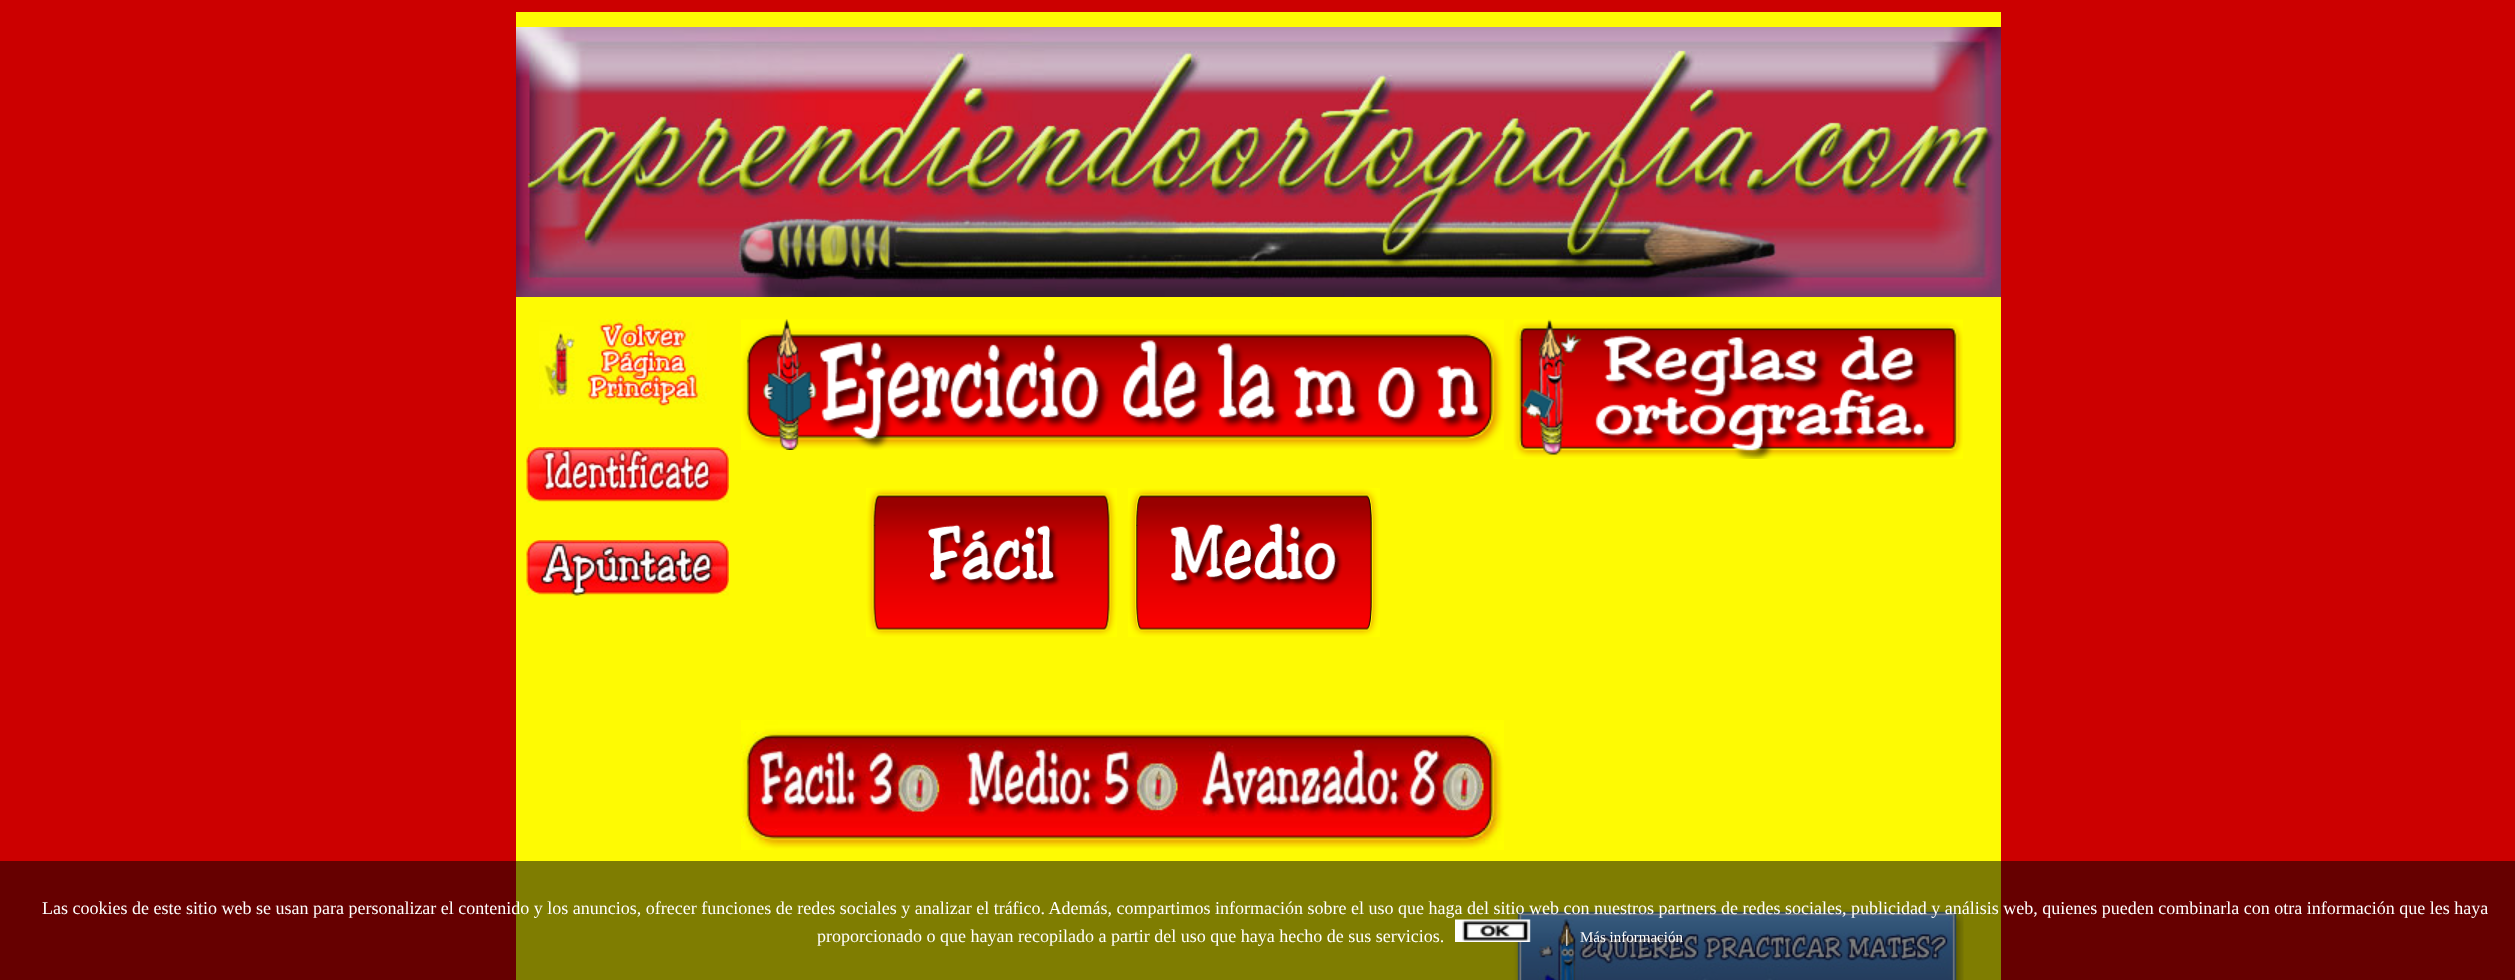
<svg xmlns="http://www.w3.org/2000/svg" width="2515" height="980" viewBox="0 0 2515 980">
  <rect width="100%" height="100%" fill="rgb(204,0,0)"/>
  <rect x="516" y="12" width="1485" height="968" fill="rgb(254,250,3)"/>
  <image x="516" y="27" width="1485" height="270" href="pic1.png"/>
  <image x="539" y="319" width="168" height="91" href="pic2.png"/>
  <image x="526" y="447" width="203" height="56" href="pic3.png"/>
  <image x="526" y="540" width="203" height="56" href="pic4.png"/>
  <image x="741" y="319" width="763" height="131" href="pic5.png"/>
  <image x="866" y="488" width="251" height="149" href="pic6.png"/>
  <image x="1128" y="488" width="252" height="149" href="pic7.png"/>
  <image x="741" y="720" width="763" height="130" href="pic8.png"/>
  <image x="1513" y="319" width="450" height="140" href="pic9.png"/>
  <image x="1513" y="909" width="451" height="71" href="pic10.png"/>
  <rect x="0" y="861" width="2515" height="119" fill="rgba(0,0,0,0.5)"/>
  <g font-family="Liberation Serif" font-size="18" fill="rgb(255,255,255)">
    <text x="42" y="914">Las cookies de este sitio web se usan para personalizar el contenido y los anuncios, ofrecer funciones de redes sociales y analizar el tráfico. Además, compartimos información sobre el uso que haga del sitio web con nuestros partners de redes sociales, publicidad y análisis web, quienes pueden combinarla con otra información que les haya</text>
    <text x="817" y="942">proporcionado o que hayan recopilado a partir del uso que haya hecho de sus servicios.</text>
  </g>
  <image x="1455" y="919" width="76" height="23" href="pic11.png"/>
  <text x="1565" y="942" font-family="Liberation Serif" font-size="18" fill="rgb(255,255,255)">|</text>
  <text x="1580" y="942" font-family="Liberation Serif" font-size="15" fill="rgb(255,255,255)">Más información</text>
</svg>
